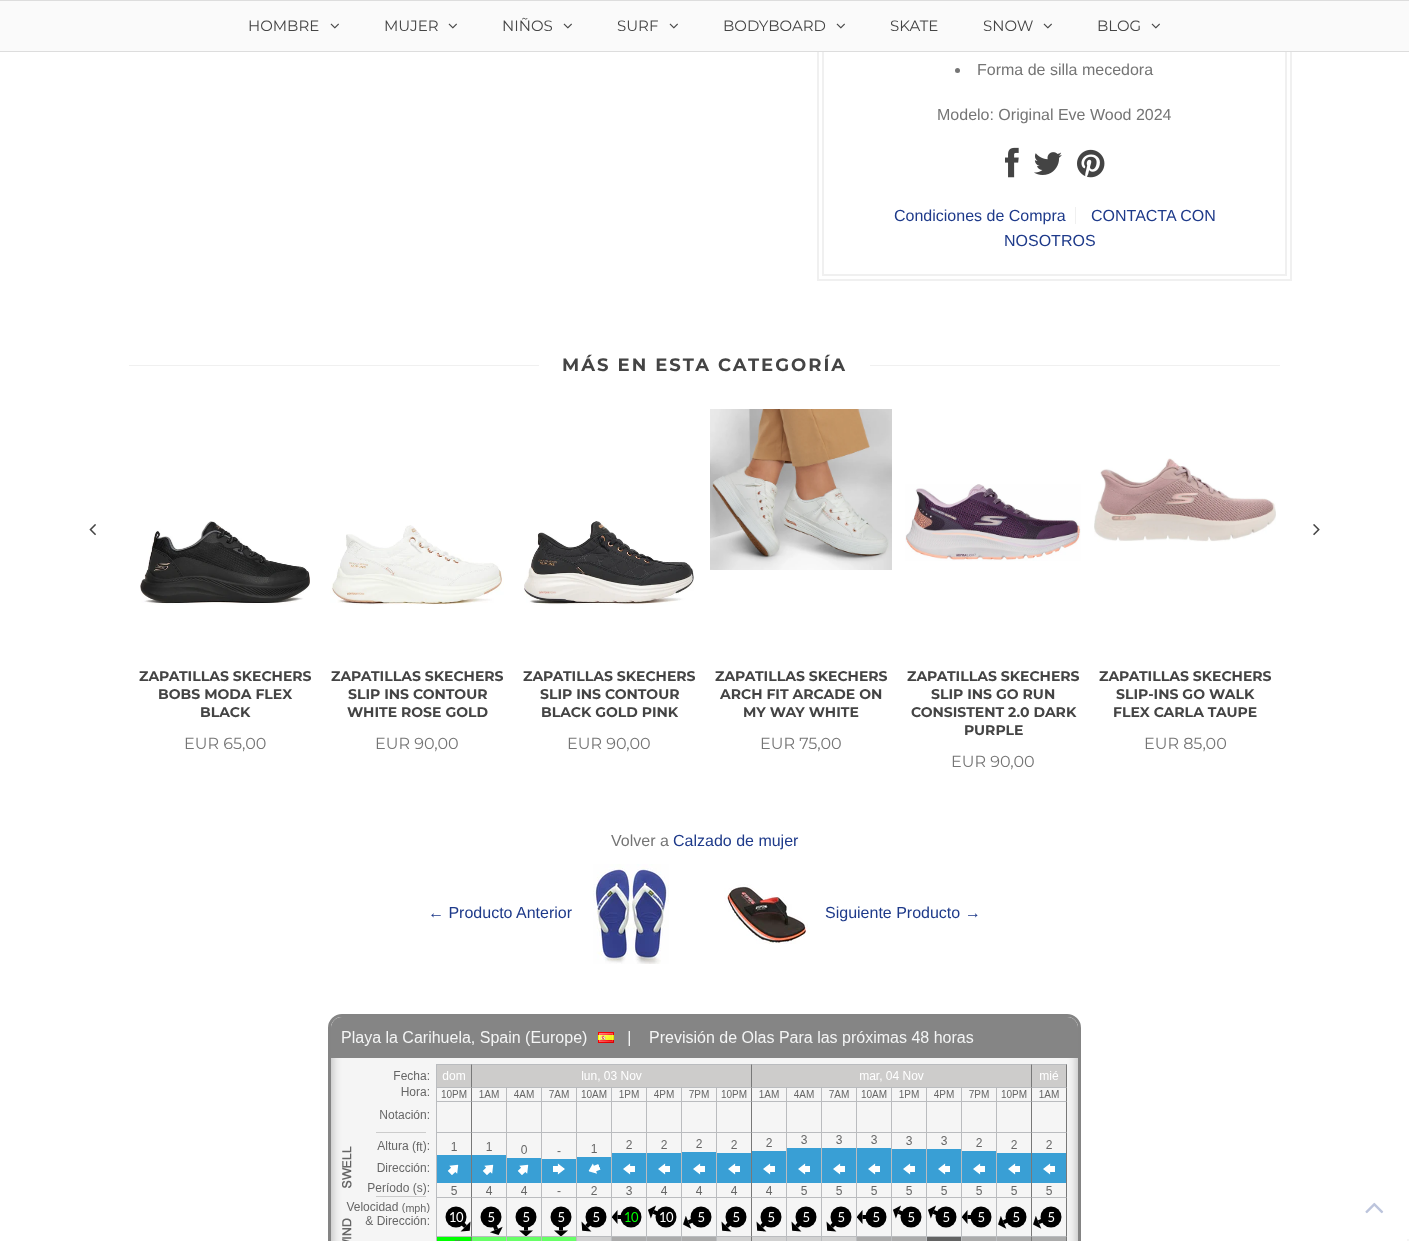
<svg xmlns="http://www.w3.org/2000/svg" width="1409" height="1241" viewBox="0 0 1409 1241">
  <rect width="100%" height="100%" fill="rgb(255,255,255)"/>
  <rect x="818" y="-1" width="473" height="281" fill="none" stroke="rgb(240,240,240)" stroke-width="2"/>
  <rect x="823" y="-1" width="463" height="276" fill="none" stroke="rgb(240,240,240)" stroke-width="2"/>
  <rect x="0" y="1" width="1409" height="50" fill="rgb(250,250,250)"/>
  <rect x="0" y="0" width="1409" height="1" fill="rgb(221,221,221)"/>
  <rect x="0" y="51" width="1409" height="1" fill="rgb(221,221,221)"/>
  <text x="248" y="31" font-family="Montserrat" font-size="15" fill="rgb(68,68,68)">HOMBRE</text>
  <image x="330" y="23" width="9" height="6" href="pic1.png"/>
  <text x="384" y="31" font-family="Montserrat" font-size="15" fill="rgb(68,68,68)">MUJER</text>
  <image x="448" y="23" width="9" height="6" href="pic1.png"/>
  <text x="502" y="31" font-family="Montserrat" font-size="15" fill="rgb(68,68,68)">NIÑOS</text>
  <image x="563" y="23" width="9" height="6" href="pic1.png"/>
  <text x="617" y="31" font-family="Montserrat" font-size="15" fill="rgb(68,68,68)">SURF</text>
  <image x="669" y="23" width="9" height="6" href="pic1.png"/>
  <text x="723" y="31" font-family="Montserrat" font-size="15" fill="rgb(68,68,68)">BODYBOARD</text>
  <image x="836" y="23" width="9" height="6" href="pic1.png"/>
  <g font-family="Montserrat" font-size="15" fill="rgb(68,68,68)">
    <text x="890" y="31">SKATE</text>
    <text x="983" y="31">SNOW</text>
  </g>
  <image x="1043" y="23" width="9" height="6" href="pic1.png"/>
  <text x="1097" y="31" font-family="Montserrat" font-size="15" fill="rgb(68,68,68)">BLOG</text>
  <image x="1151" y="23" width="9" height="6" href="pic1.png"/>
  <circle cx="957.5" cy="70.5" r="2.5" fill="rgb(117,117,117)"/>
  <g font-family="Liberation Sans" font-size="16" fill="rgb(117,117,117)">
    <text x="977" y="75">Forma de silla mecedora</text>
    <text x="937" y="120">Modelo: Original Eve Wood 2024</text>
  </g>
  <image x="1005" y="147" width="14" height="31" href="pic2.png"/>
  <image x="1034" y="152" width="28" height="23" href="pic3.png"/>
  <image x="1077" y="149" width="28" height="29" href="pic4.png"/>
  <text x="894" y="221" font-family="Liberation Sans" font-size="16" fill="rgb(30,58,138)">Condiciones de Compra</text>
  <rect x="1075" y="207" width="1" height="17" fill="rgb(240,240,240)"/>
  <g font-family="Liberation Sans" font-size="16" fill="rgb(30,58,138)">
    <text x="1091" y="221">CONTACTA CON</text>
    <text x="1004" y="246">NOSOTROS</text>
  </g>
  <rect x="129" y="365" width="1151" height="1" fill="rgb(240,240,240)"/>
  <rect x="539" y="365" width="331" height="1" fill="rgb(255,255,255)"/>
  <text x="562" y="371" font-family="Montserrat" font-size="18" font-weight="bold" letter-spacing="2" fill="rgb(68,68,68)">MÁS EN ESTA CATEGORÍA</text>
  <image x="89" y="524" width="7" height="12" href="pic5.png"/>
  <image x="1313" y="524" width="7" height="12" href="pic6.png"/>
  <image x="140" y="521" width="170" height="84" href="pic7.png"/>
  <g font-family="Montserrat" font-size="14" font-weight="bold" fill="rgb(68,68,68)">
    <text x="139" y="681">ZAPATILLAS SKECHERS</text>
    <text x="158" y="699">BOBS MODA FLEX</text>
    <text x="200" y="717">BLACK</text>
  </g>
  <text x="184" y="749" font-family="Montserrat" font-size="16" fill="rgb(117,117,117)">EUR 65,00</text>
  <image x="330" y="525" width="174" height="80" href="pic8.png"/>
  <g font-family="Montserrat" font-size="14" font-weight="bold" fill="rgb(68,68,68)">
    <text x="331" y="681">ZAPATILLAS SKECHERS</text>
    <text x="348" y="699">SLIP INS CONTOUR</text>
    <text x="347" y="717">WHITE ROSE GOLD</text>
  </g>
  <text x="375" y="749" font-family="Montserrat" font-size="16" fill="rgb(117,117,117)">EUR 90,00</text>
  <image x="524" y="521" width="170" height="84" href="pic9.png"/>
  <g font-family="Montserrat" font-size="14" font-weight="bold" fill="rgb(68,68,68)">
    <text x="523" y="681">ZAPATILLAS SKECHERS</text>
    <text x="540" y="699">SLIP INS CONTOUR</text>
    <text x="541" y="717">BLACK GOLD PINK</text>
  </g>
  <text x="567" y="749" font-family="Montserrat" font-size="16" fill="rgb(117,117,117)">EUR 90,00</text>
  <image x="710" y="409" width="182" height="161" href="pic10.png"/>
  <g font-family="Montserrat" font-size="14" font-weight="bold" fill="rgb(68,68,68)">
    <text x="715" y="681">ZAPATILLAS SKECHERS</text>
    <text x="720" y="699">ARCH FIT ARCADE ON</text>
    <text x="743" y="717">MY WAY WHITE</text>
  </g>
  <text x="760" y="749" font-family="Montserrat" font-size="16" fill="rgb(117,117,117)">EUR 75,00</text>
  <image x="905" y="484" width="176" height="77" href="pic11.png"/>
  <g font-family="Montserrat" font-size="14" font-weight="bold" fill="rgb(68,68,68)">
    <text x="907" y="681">ZAPATILLAS SKECHERS</text>
    <text x="931" y="699">SLIP INS GO RUN</text>
    <text x="911" y="717">CONSISTENT 2.0 DARK</text>
    <text x="964" y="735">PURPLE</text>
  </g>
  <text x="951" y="767" font-family="Montserrat" font-size="16" fill="rgb(117,117,117)">EUR 90,00</text>
  <image x="1094" y="458" width="182" height="84" href="pic12.png"/>
  <g font-family="Montserrat" font-size="14" font-weight="bold" fill="rgb(68,68,68)">
    <text x="1099" y="681">ZAPATILLAS SKECHERS</text>
    <text x="1116" y="699">SLIP-INS GO WALK</text>
    <text x="1113" y="717">FLEX CARLA TAUPE</text>
  </g>
  <text x="1144" y="749" font-family="Montserrat" font-size="16" fill="rgb(117,117,117)">EUR 85,00</text>
  <text x="611" y="846" font-family="Liberation Sans" font-size="16" fill="rgb(117,117,117)">Volver a</text>
  <g font-family="Liberation Sans" font-size="16" fill="rgb(30,58,138)">
    <text x="673" y="846">Calzado de mujer</text>
    <text x="428" y="918">← Producto Anterior</text>
  </g>
  <image x="593" y="864" width="76" height="100" href="pic13.png"/>
  <image x="724" y="884" width="86" height="60" href="pic14.png"/>
  <text x="825" y="918" font-family="Liberation Sans" font-size="16" fill="rgb(30,58,138)">Siguiente Producto →</text>
  <rect x="329.5" y="1015.5" width="750" height="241" rx="12.5" fill="none" stroke="rgb(132,132,132)" stroke-width="3"/>
  <image x="331" y="1017" width="747" height="224" href="pic15.png"/>
  <image x="1365" y="1202" width="19" height="12" href="pic16.png"/>
  <rect x="1407" y="1239" width="2" height="2" fill="rgb(245,245,245)"/>
</svg>
